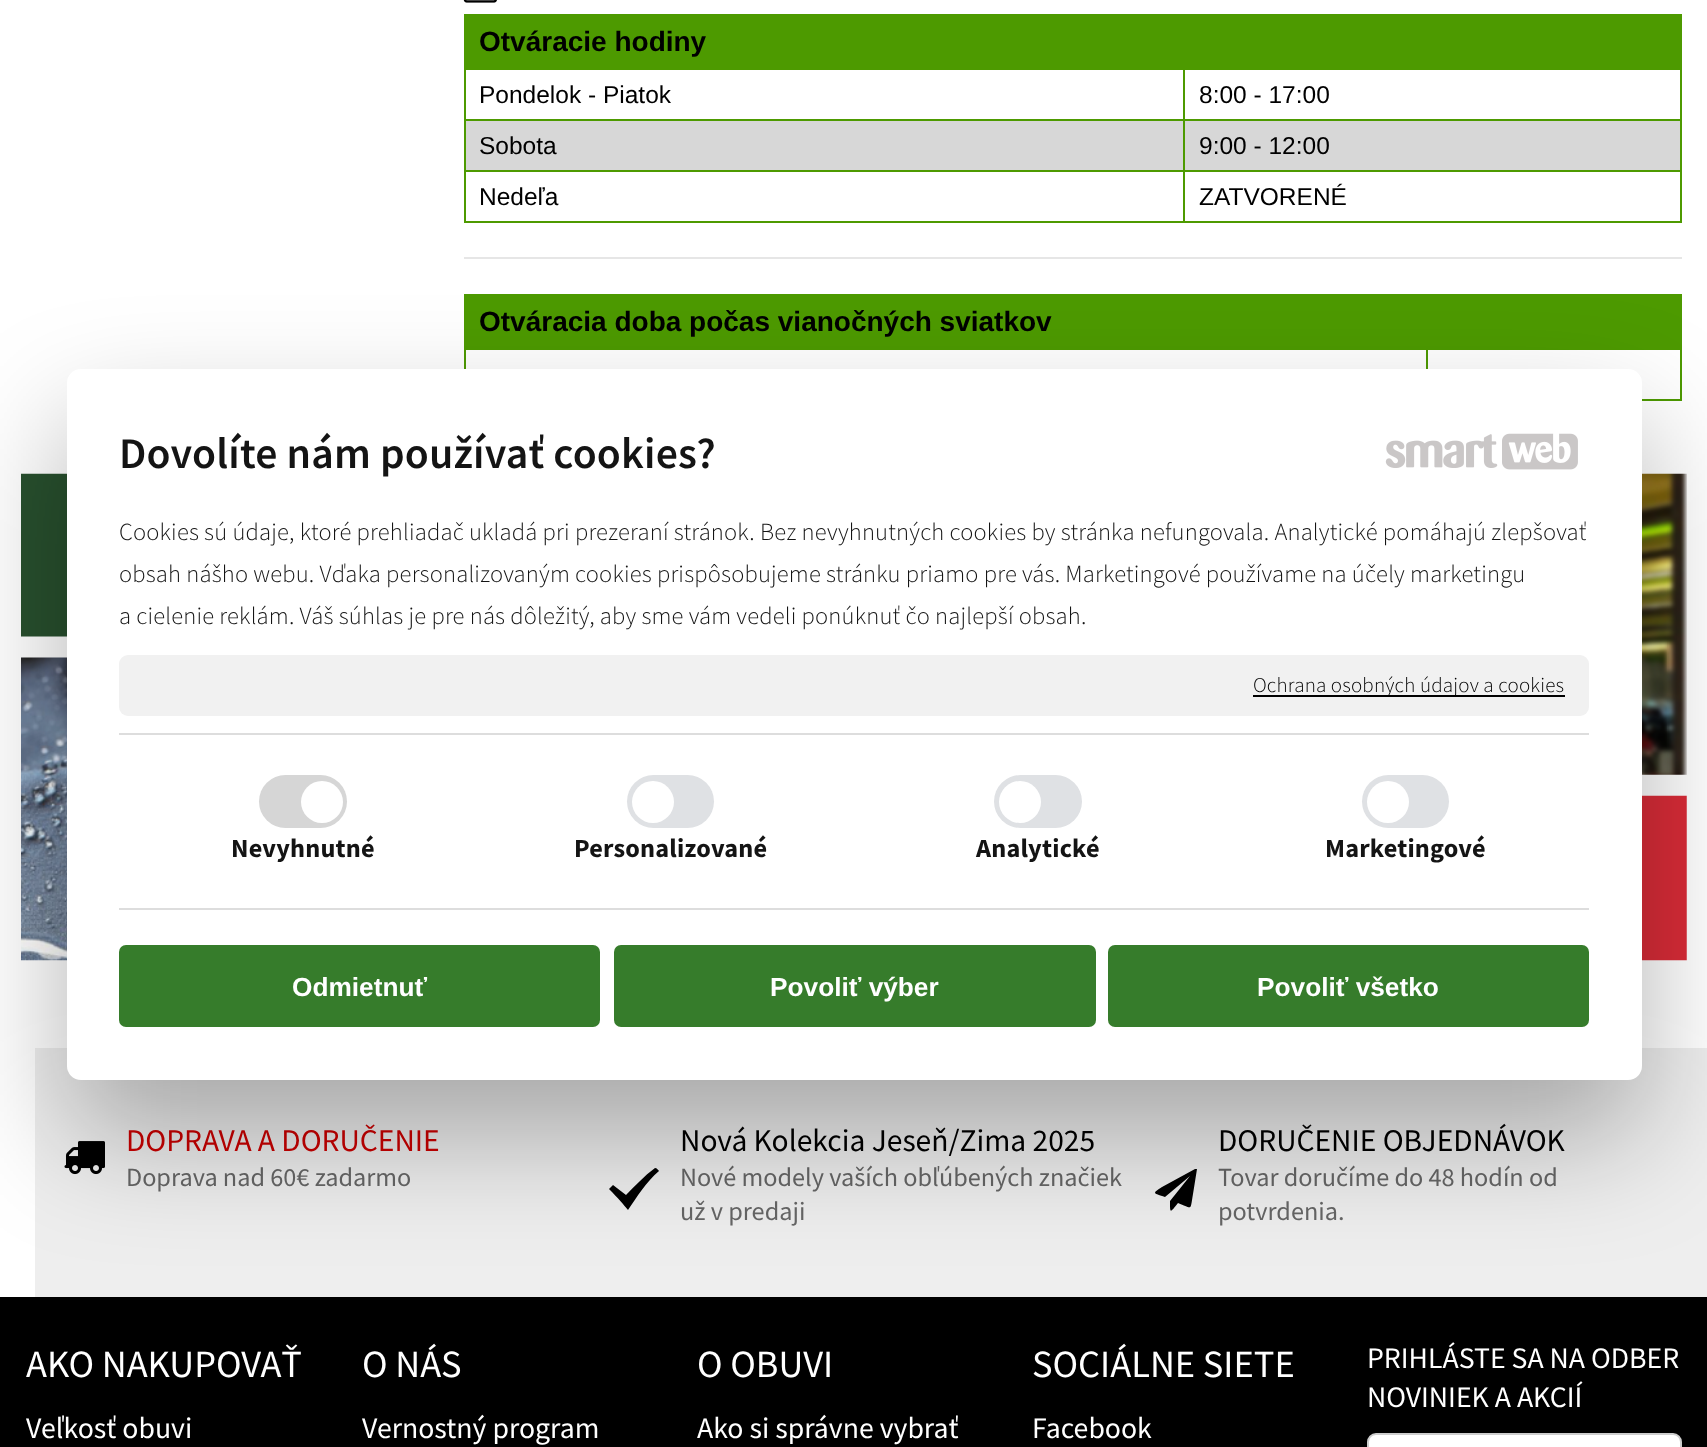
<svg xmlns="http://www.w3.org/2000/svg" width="1707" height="1447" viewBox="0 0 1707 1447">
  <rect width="100%" height="100%" fill="rgb(255,255,255)"/>
  <image x="463" y="0" width="34" height="3" href="pic1.png"/>
  <rect x="464" y="14" width="1218" height="2" fill="rgb(77,154,0)"/>
  <rect x="1680" y="14" width="2" height="208" fill="rgb(77,154,0)"/>
  <rect x="464" y="221" width="1218" height="2" fill="rgb(77,154,0)"/>
  <rect x="464" y="14" width="2" height="208" fill="rgb(77,154,0)"/>
  <rect x="466" y="16" width="1214" height="52" fill="rgb(77,154,0)"/>
  <text x="479" y="51" font-family="Liberation Sans" font-size="28" font-weight="bold" fill="rgb(0,0,0)">Otváracie hodiny</text>
  <rect x="1183" y="68" width="499" height="2" fill="rgb(77,154,0)"/>
  <rect x="1183" y="119" width="499" height="2" fill="rgb(77,154,0)"/>
  <rect x="1183" y="170" width="499" height="2" fill="rgb(77,154,0)"/>
  <rect x="1183" y="170" width="2" height="52" fill="rgb(77,154,0)"/>
  <rect x="464" y="170" width="721" height="2" fill="rgb(77,154,0)"/>
  <rect x="1183" y="119" width="2" height="53" fill="rgb(77,154,0)"/>
  <rect x="464" y="119" width="721" height="2" fill="rgb(77,154,0)"/>
  <rect x="1183" y="68" width="2" height="53" fill="rgb(77,154,0)"/>
  <rect x="464" y="68" width="721" height="2" fill="rgb(77,154,0)"/>
  <g font-family="Liberation Sans" font-size="24.5" fill="rgb(0,0,0)">
    <text x="479" y="103">Pondelok - Piatok</text>
    <text x="1199" y="103">8:00 - 17:00</text>
  </g>
  <rect x="466" y="121" width="717" height="49" fill="rgb(215,215,215)"/>
  <text x="479" y="154" font-family="Liberation Sans" font-size="24.5" fill="rgb(0,0,0)">Sobota</text>
  <rect x="1185" y="121" width="495" height="49" fill="rgb(215,215,215)"/>
  <g font-family="Liberation Sans" font-size="24.5" fill="rgb(0,0,0)">
    <text x="1199" y="154">9:00 - 12:00</text>
    <text x="479" y="205">Nedeľa</text>
    <text x="1199" y="205">ZATVORENÉ</text>
  </g>
  <rect x="464" y="257" width="1218" height="2" fill="rgb(230,230,230)"/>
  <rect x="464" y="294" width="1218" height="2" fill="rgb(77,154,0)"/>
  <rect x="1680" y="294" width="2" height="107" fill="rgb(77,154,0)"/>
  <rect x="1642" y="399" width="40" height="2" fill="rgb(77,154,0)"/>
  <rect x="464" y="294" width="2" height="75" fill="rgb(77,154,0)"/>
  <rect x="466" y="296" width="1214" height="52" fill="rgb(77,154,0)"/>
  <text x="479" y="331" font-family="Liberation Sans" font-size="28" font-weight="bold" fill="rgb(0,0,0)">Otváracia doba počas vianočných sviatkov</text>
  <rect x="1426" y="348" width="256" height="2" fill="rgb(77,154,0)"/>
  <rect x="1426" y="348" width="2" height="21" fill="rgb(77,154,0)"/>
  <rect x="464" y="348" width="964" height="2" fill="rgb(77,154,0)"/>
  <image x="21" y="473" width="46" height="164" href="pic2.png"/>
  <image x="21" y="657" width="46" height="304" href="pic3.png"/>
  <image x="1642" y="473" width="45" height="302" href="pic4.png"/>
  <image x="1642" y="795" width="45" height="166" href="pic5.png"/>
  <rect x="35" y="1048" width="1672" height="249" fill="rgb(238,238,238)"/>
  <image x="64" y="1141" width="41" height="34" href="pic6.png"/>
  <text x="126" y="1151" font-family="Source Sans Pro" font-size="31.5" fill="rgb(205,0,0)">DOPRAVA A DORUČENIE</text>
  <text x="126" y="1186" font-family="Source Sans Pro" font-size="26.25" fill="rgb(102,102,102)">Doprava nad 60€ zadarmo</text>
  <path d="M659 1171C646 1182 637 1197 628 1210C624 1205 618 1198 609 1189L613 1185L626 1195C635 1186 644 1176 655 1168C657 1168 658 1170 659 1171Z" fill="rgb(0,0,0)"/>
  <text x="680" y="1151" font-family="Source Sans Pro" font-size="31.5" fill="rgb(0,0,0)">Nová Kolekcia Jeseň/Zima 2025</text>
  <g font-family="Source Sans Pro" font-size="26.25" fill="rgb(102,102,102)">
    <text>
      <tspan x="680" y="1186">Nové modely vaších obľúbených značiek</tspan>
      <tspan x="680" y="1220">už v predaji</tspan>
    </text>
  </g>
  <path d="M1196 1169H1197L1193 1194C1190 1211 1193 1209 1178 1203C1170 1213 1170 1214 1170 1201L1190 1176L1165 1197C1154 1193 1151 1194 1162 1187L1195 1169Z" fill="rgb(0,0,0)"/>
  <text x="1218" y="1151" font-family="Source Sans Pro" font-size="31.5" fill="rgb(0,0,0)">DORUČENIE OBJEDNÁVOK</text>
  <g font-family="Source Sans Pro" font-size="26.25" fill="rgb(102,102,102)">
    <text>
      <tspan x="1218" y="1186">Tovar doručíme do 48 hodín od</tspan>
      <tspan x="1218" y="1220">potvrdenia.</tspan>
    </text>
  </g>
  <rect x="0" y="1297" width="1707" height="150" fill="rgb(0,0,0)"/>
  <rect x="67" y="425" width="1575" height="711" rx="14" fill="rgba(0,0,0,0.3)" filter="blur(59.5px)"/>
  <rect x="67" y="369" width="1575" height="711" rx="14" fill="rgb(255,255,255)"/>
  <text x="119" y="468" font-family="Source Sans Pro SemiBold" font-size="43.75" font-weight="600" letter-spacing="0.18" fill="rgb(20,20,20)">Dovolíte nám používať cookies?</text>
  <image x="1385" y="434" width="113" height="34" href="pic7.png"/>
  <image x="1502" y="433" width="76" height="37" href="pic8.png"/>
  <g font-family="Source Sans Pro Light" font-size="24.5" font-weight="300" letter-spacing="0.18" fill="rgb(20,20,20)">
    <text>
      <tspan x="119" y="540">Cookies sú údaje, ktoré prehliadač ukladá pri prezeraní stránok. Bez nevyhnutných cookies by stránka nefungovala. Analytické pomáhajú zlepšovať</tspan>
      <tspan x="119" y="582">obsah nášho webu. Vďaka personalizovaným cookies prispôsobujeme stránku priamo pre vás. Marketingové používame na účely marketingu</tspan>
      <tspan x="119" y="624">a cielenie reklám. Váš súhlas je pre nás dôležitý, aby sme vám vedeli ponúknuť čo najlepší obsah.</tspan>
    </text>
  </g>
  <rect x="119" y="655" width="1470" height="61" rx="9" fill="rgb(241,241,241)"/>
  <rect x="1253" y="695" width="312" height="2" fill="rgb(0,0,0)"/>
  <text x="1253" y="692" font-family="Source Sans Pro Light" font-size="21" font-weight="300" letter-spacing="0.18" fill="rgb(0,0,0)">Ochrana osobných údajov a cookies</text>
  <rect x="119" y="733" width="1470" height="2" fill="rgb(221,221,221)"/>
  <rect x="119" y="908" width="1470" height="2" fill="rgb(221,221,221)"/>
  <rect x="259" y="775" width="88" height="53" rx="26.5" fill="rgb(214,214,214)"/>
  <circle cx="322" cy="802" r="21" fill="rgb(255,255,255)"/>
  <text x="231" y="857" font-family="Source Sans Pro" font-size="26.25" font-weight="bold" letter-spacing="0.18" fill="rgb(20,20,20)">Nevyhnutné</text>
  <rect x="627" y="775" width="87" height="53" rx="26.5" fill="rgb(223,225,228)"/>
  <circle cx="653" cy="802" r="21" fill="rgb(255,255,255)"/>
  <text x="574" y="857" font-family="Source Sans Pro" font-size="26.25" font-weight="bold" letter-spacing="0.18" fill="rgb(20,20,20)">Personalizované</text>
  <rect x="994" y="775" width="88" height="53" rx="26.5" fill="rgb(223,225,228)"/>
  <circle cx="1020" cy="802" r="21" fill="rgb(255,255,255)"/>
  <text x="976" y="857" font-family="Source Sans Pro" font-size="26.25" font-weight="bold" letter-spacing="0.18" fill="rgb(20,20,20)">Analytické</text>
  <rect x="1362" y="775" width="87" height="53" rx="26.5" fill="rgb(223,225,228)"/>
  <circle cx="1388" cy="802" r="21" fill="rgb(255,255,255)"/>
  <text x="1325" y="857" font-family="Source Sans Pro" font-size="26.25" font-weight="bold" letter-spacing="0.18" fill="rgb(20,20,20)">Marketingové</text>
  <rect x="119" y="945" width="481" height="82" rx="7" fill="rgb(54,124,43)"/>
  <text x="292" y="996" font-family="Liberation Sans" font-size="26.25" font-weight="bold" fill="rgb(255,255,255)">Odmietnuť</text>
  <rect x="614" y="945" width="482" height="82" rx="7" fill="rgb(54,124,43)"/>
  <text x="770" y="996" font-family="Liberation Sans" font-size="26.25" font-weight="bold" fill="rgb(255,255,255)">Povoliť výber</text>
  <rect x="1108" y="945" width="481" height="82" rx="7" fill="rgb(54,124,43)"/>
  <text x="1257" y="996" font-family="Liberation Sans" font-size="26.25" font-weight="bold" fill="rgb(255,255,255)">Povoliť všetko</text>
  <text x="26" y="1377" font-family="Source Sans Pro" font-size="38.5" fill="rgb(255,255,255)">AKO NAKUPOVAŤ</text>
  <text x="26" y="1438" font-family="Source Sans Pro" font-size="29.75" fill="rgb(255,255,255)">Veľkosť obuvi</text>
  <text x="362" y="1377" font-family="Source Sans Pro" font-size="38.5" fill="rgb(255,255,255)">O NÁS</text>
  <text x="362" y="1438" font-family="Source Sans Pro" font-size="29.75" fill="rgb(255,255,255)">Vernostný program</text>
  <text x="697" y="1377" font-family="Source Sans Pro" font-size="38.5" fill="rgb(255,255,255)">O OBUVI</text>
  <text x="697" y="1438" font-family="Source Sans Pro" font-size="29.75" fill="rgb(255,255,255)">Ako si správne vybrať</text>
  <text x="1032" y="1377" font-family="Source Sans Pro" font-size="38.5" fill="rgb(255,255,255)">SOCIÁLNE SIETE</text>
  <g font-family="Source Sans Pro" font-size="29.75" fill="rgb(255,255,255)">
    <text x="1032" y="1438">Facebook</text>
    <text>
      <tspan x="1367" y="1368">PRIHLÁSTE SA NA ODBER</tspan>
      <tspan x="1367" y="1407">NOVINIEK A AKCIÍ</tspan>
    </text>
  </g>
  <rect x="1368" y="1434" width="313" height="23" rx="8" fill="rgb(255,255,255)" stroke="rgb(205,205,205)" stroke-width="2"/>
</svg>
